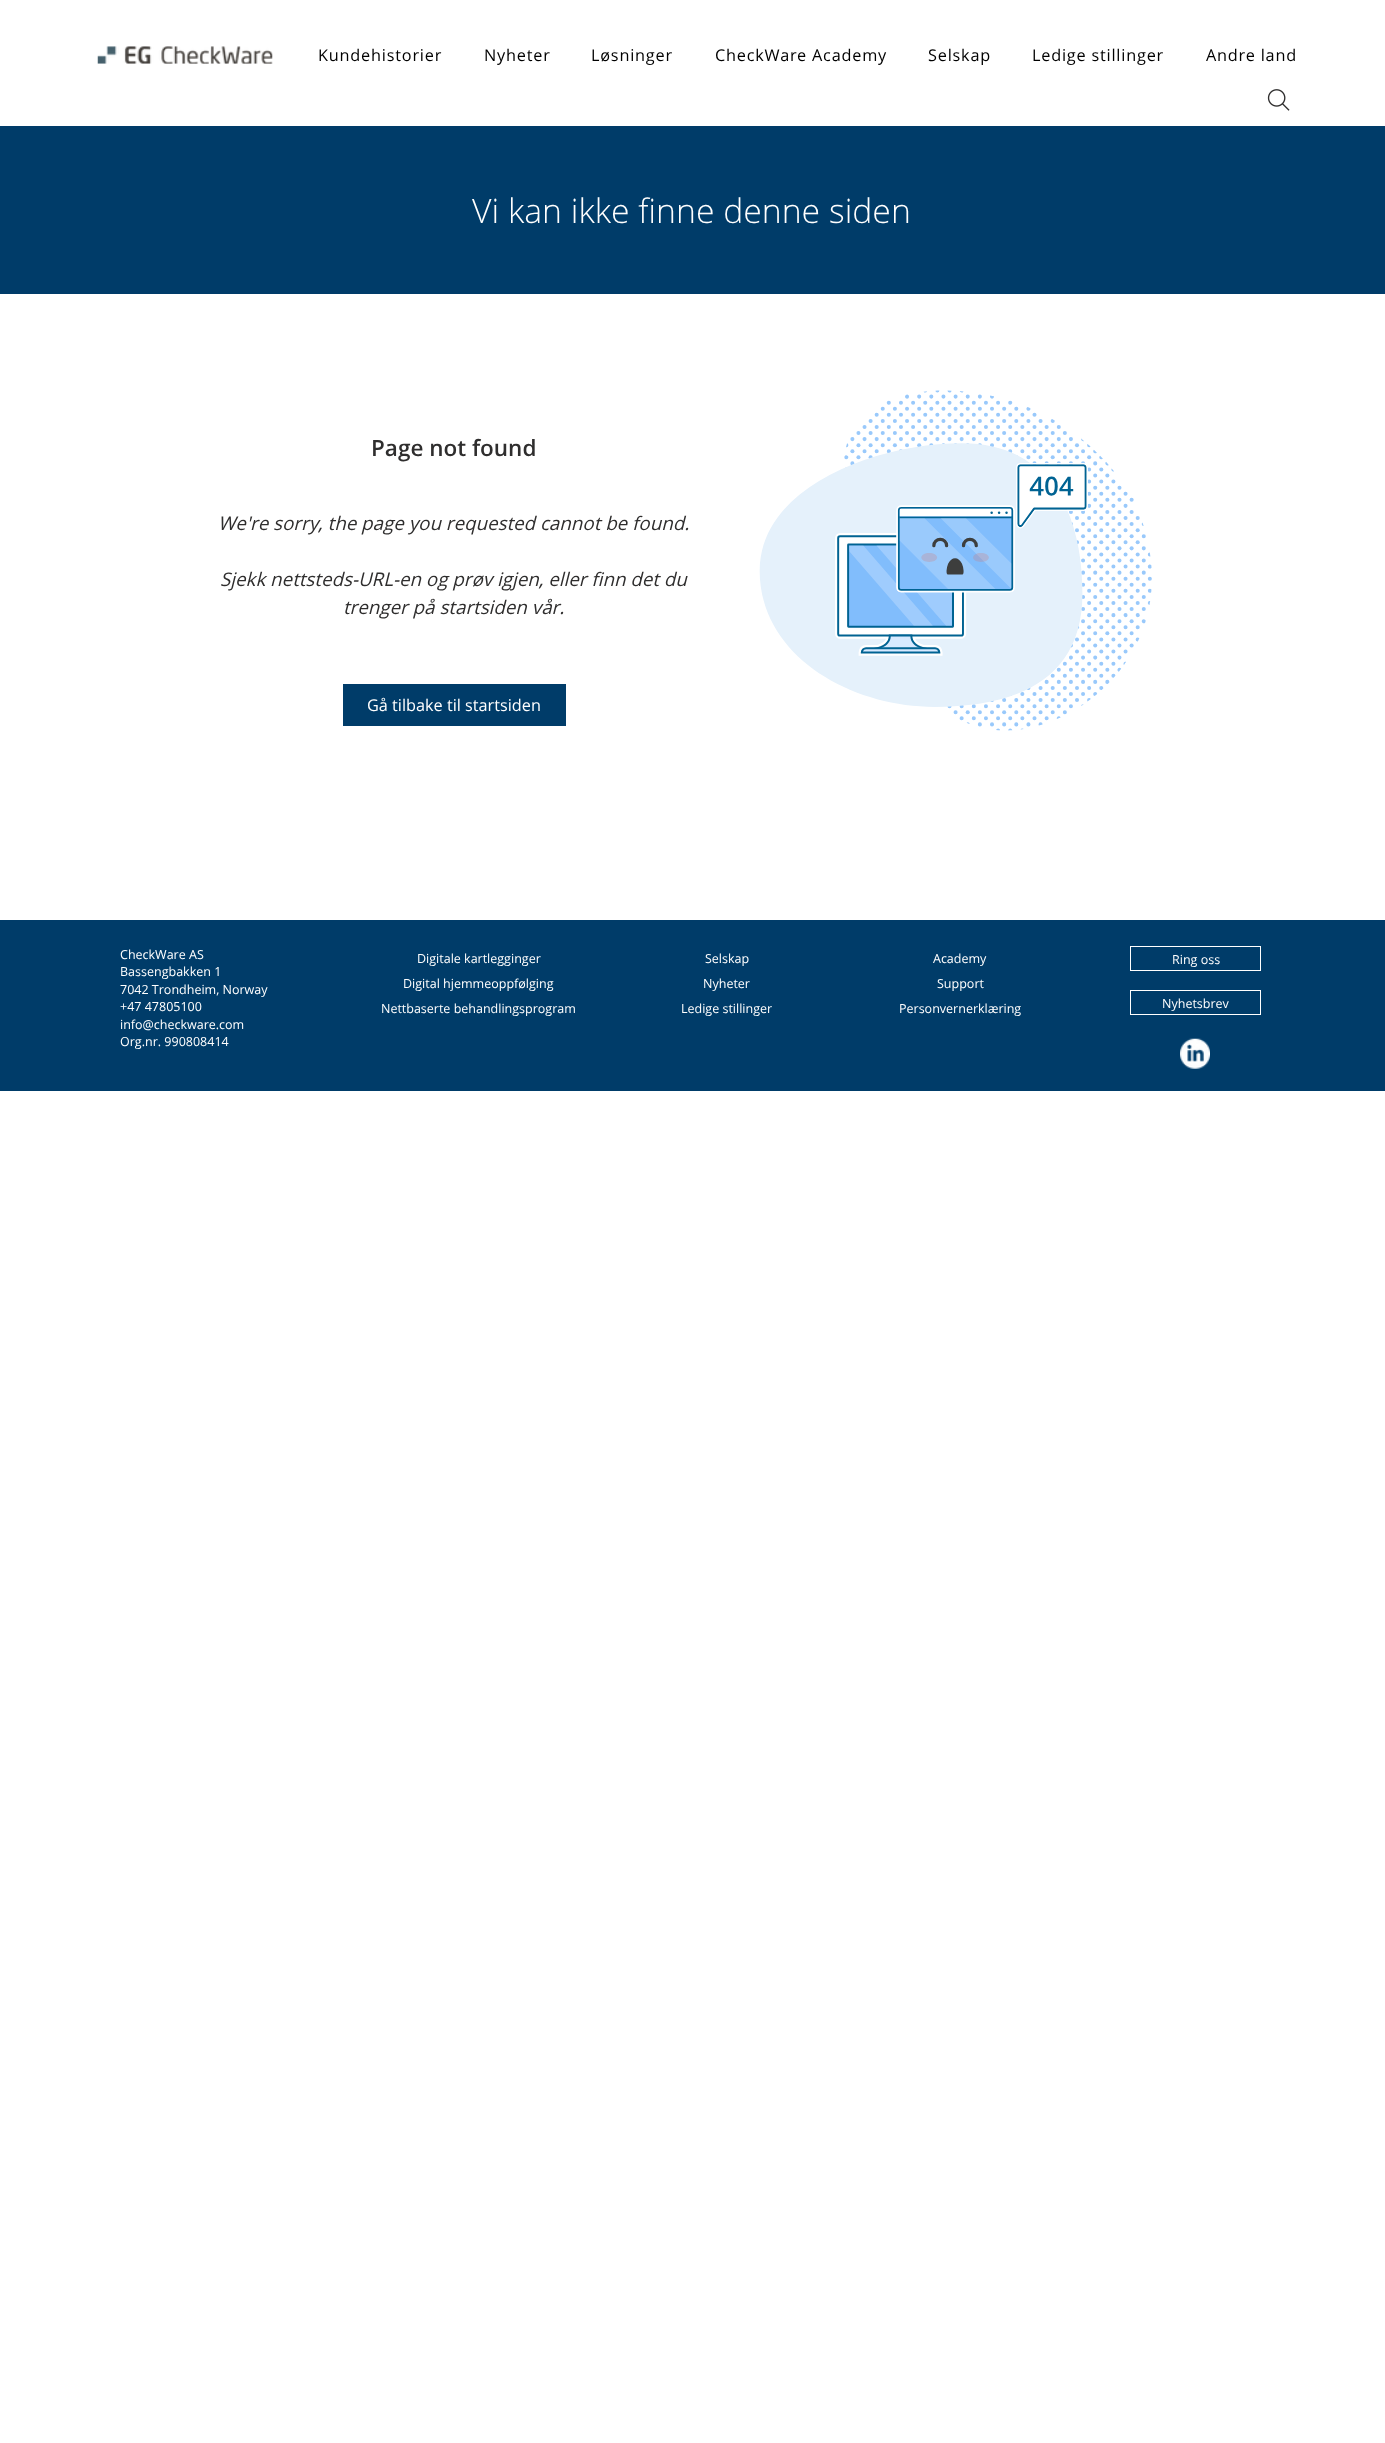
<svg xmlns="http://www.w3.org/2000/svg" width="1385" height="2443" viewBox="0 0 1385 2443">
  <rect width="100%" height="100%" fill="rgb(255,255,255)"/>
  <image x="97" y="46" width="176" height="18" href="pic1.png"/>
  <g font-family="'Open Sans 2'" font-size="16.25" letter-spacing="0.8" fill="rgb(0,0,0)">
    <text x="318" y="61">Kundehistorier</text>
    <text x="484" y="61">Nyheter</text>
    <text x="591" y="61">Løsninger</text>
    <text x="715" y="61">CheckWare Academy</text>
    <text x="928" y="61">Selskap</text>
    <text x="1032" y="61">Ledige stillinger</text>
    <text x="1206" y="61">Andre land</text>
  </g>
  <image x="1267" y="89" width="23" height="22" href="pic2.png"/>
  <rect x="0" y="126" width="1385" height="168" fill="rgb(0,60,105)"/>
  <text x="472" y="223" font-family="Open Sans" font-size="33.75" font-weight="300" fill="rgb(255,255,255)">Vi kan ikke finne denne siden</text>
  <text x="371" y="456" font-family="Open Sans" font-size="22.5" font-weight="600" fill="rgb(47,46,46)">Page not found</text>
  <image x="759" y="390" width="393" height="341" href="pic3.png"/>
  <g font-family="Open Sans" font-size="18.75" font-style="italic" fill="rgb(47,46,46)">
    <text x="218" y="530">We're sorry, the page you requested cannot be found.</text>
    <text x="220" y="586">Sjekk nettsteds-URL-en og prøv igjen, eller finn det du</text>
    <text x="343" y="614">trenger på startsiden vår.</text>
  </g>
  <rect x="343" y="684" width="223" height="42" fill="rgb(0,60,105)"/>
  <text x="367" y="711" font-family="Open Sans" font-size="16.25" fill="rgb(255,255,255)">Gå tilbake til startsiden</text>
  <rect x="0" y="920" width="1385" height="171" fill="rgb(0,60,105)"/>
  <g font-family="Open Sans" font-size="12.5" fill="rgb(255,255,255)">
    <text>
      <tspan x="120" y="959">CheckWare AS</tspan>
      <tspan x="120" y="976">Bassengbakken 1</tspan>
      <tspan x="120" y="994">7042 Trondheim, Norway</tspan>
      <tspan x="120" y="1011">+47 47805100</tspan>
      <tspan x="120" y="1029">info@checkware.com</tspan>
      <tspan x="120" y="1046">Org.nr. 990808414</tspan>
    </text>
    <text x="417" y="963">Digitale kartlegginger</text>
    <text x="403" y="988">Digital hjemmeoppfølging</text>
    <text x="381" y="1013">Nettbaserte behandlingsprogram</text>
    <text x="705" y="963">Selskap</text>
    <text x="703" y="988">Nyheter</text>
    <text x="681" y="1013">Ledige stillinger</text>
    <text x="933" y="963">Academy</text>
    <text x="937" y="988">Support</text>
    <text x="899" y="1013">Personvernerklæring</text>
  </g>
  <rect x="1130.5" y="946.5" width="130" height="24" fill="none" stroke="rgb(255,255,255)"/>
  <text x="1172" y="964" font-family="Open Sans" font-size="12.5" fill="rgb(255,255,255)">Ring oss</text>
  <rect x="1130.5" y="990.5" width="130" height="24" fill="none" stroke="rgb(255,255,255)"/>
  <text x="1162" y="1008" font-family="Open Sans" font-size="12.5" fill="rgb(255,255,255)">Nyhetsbrev</text>
  <image x="1180" y="1038" width="30" height="31" href="pic4.png"/>
</svg>
